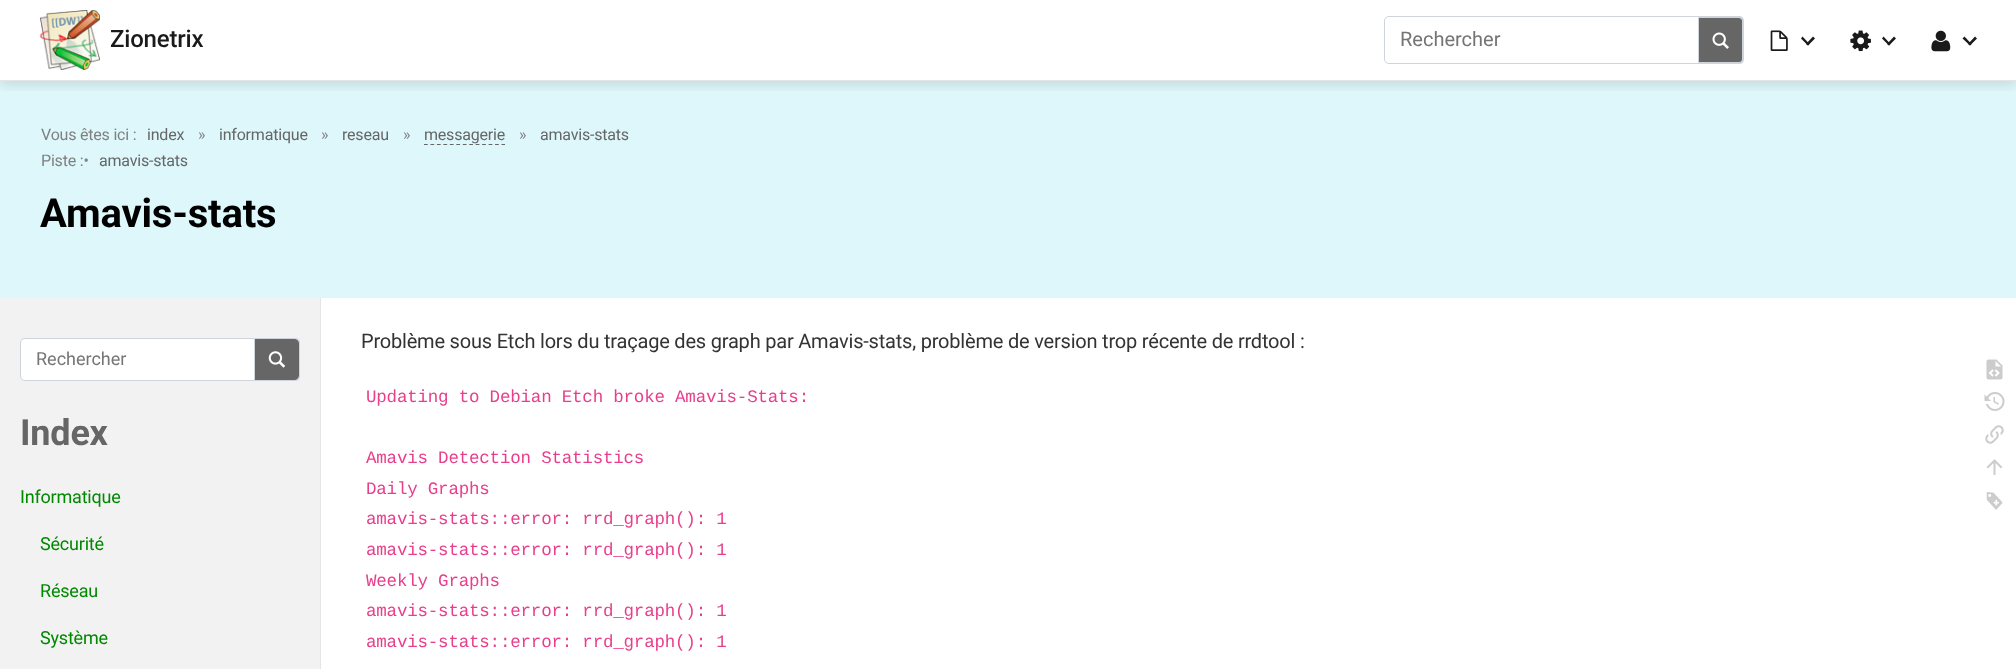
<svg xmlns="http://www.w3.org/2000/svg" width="2016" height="669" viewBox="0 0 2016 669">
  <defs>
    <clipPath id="clip1"><rect x="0" y="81" width="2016" height="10"/></clipPath>
  </defs>
  <rect width="100%" height="100%" fill="rgb(255,255,255)"/>
  <rect x="0" y="81" width="2016" height="217" fill="rgb(221,247,251)"/>
  <g clip-path="url(#clip1)">
    <rect x="0" y="5" width="2016" height="81" fill="rgba(0,0,0,0.1)" filter="blur(6px)"/>
  </g>
  <rect x="0" y="80" width="2016" height="1" fill="rgb(229,229,229)"/>
  <image x="40" y="10" width="60" height="60" href="pic1.png"/>
  <text x="110" y="47" font-family="Roboto" font-size="24" font-weight="500" letter-spacing="-0.2" fill="rgb(26,26,26)">Zionetrix</text>
  <path d="M1389 16.5H1698.5V63.5H1389C1386.5 63.5 1384.5 61.5 1384.5 59V21C1384.5 18.5 1386.5 16.5 1389 16.5Z" fill="none" stroke="rgb(206,212,218)"/>
  <text x="1400" y="46" font-family="Roboto" font-size="20" fill="rgb(117,117,117)">Rechercher</text>
  <path d="M1699 18H1739C1741 18 1743 20 1743 22V59C1743 61 1741 63 1739 63H1699Z" fill="rgb(102,102,102)"/>
  <path d="M1699 16H1739C1742 16 1744 18 1744 21V59C1744 62 1742 64 1739 64H1699ZM1699 18H1739C1741 18 1742 19 1742 21V59C1742 61 1741 62 1739 62H1699Z" fill="rgb(206,212,218)" fill-rule="evenodd"/>
  <image x="1712" y="32" width="17" height="17" href="pic2.png"/>
  <image x="1770" y="30" width="18" height="21" href="pic3.png"/>
  <path d="M1806 44L1813 36.5L1815 38.5L1808 45.5Z" fill="rgb(26,26,26)"/>
  <path d="M1801 38.5L1802.5 36.5L1809.5 44L1808 45.5Z" fill="rgb(26,26,26)"/>
  <image x="1850" y="30" width="21" height="22" href="pic4.png"/>
  <path d="M1887 44L1894 36.5L1896 38.5L1889 45.5Z" fill="rgb(26,26,26)"/>
  <path d="M1882 38.5L1883.5 36.5L1890.5 44L1889 45.5Z" fill="rgb(26,26,26)"/>
  <image x="1931" y="30" width="20" height="22" href="pic5.png"/>
  <path d="M1968 44L1975 36.5L1977 38.5L1970 45.5Z" fill="rgb(26,26,26)"/>
  <path d="M1962.5 38.5L1964.5 36.5L1971.5 44L1970 45.5Z" fill="rgb(26,26,26)"/>
  <text x="41" y="140" font-family="Roboto" font-size="16" letter-spacing="-0.2" fill="rgb(128,128,128)">Vous êtes ici :</text>
  <text x="147" y="140" font-family="Roboto" font-size="16" letter-spacing="-0.2" fill="rgb(102,102,102)">index</text>
  <text x="198" y="140" font-family="Roboto" font-size="16" letter-spacing="-0.2" fill="rgb(128,128,128)">»</text>
  <text x="219" y="140" font-family="Roboto" font-size="16" letter-spacing="-0.2" fill="rgb(102,102,102)">informatique</text>
  <text x="321" y="140" font-family="Roboto" font-size="16" letter-spacing="-0.2" fill="rgb(128,128,128)">»</text>
  <text x="342" y="140" font-family="Roboto" font-size="16" letter-spacing="-0.2" fill="rgb(102,102,102)">reseau</text>
  <text x="403" y="140" font-family="Roboto" font-size="16" letter-spacing="-0.2" fill="rgb(128,128,128)">»</text>
  <path d="M424 144.5H505" fill="none" stroke="rgb(102,102,102)" stroke-width="1.2" stroke-dasharray="3.75 2.71"/>
  <text x="424" y="140" font-family="Roboto" font-size="16" letter-spacing="-0.2" fill="rgb(102,102,102)">messagerie</text>
  <text x="519" y="140" font-family="Roboto" font-size="16" letter-spacing="-0.2" fill="rgb(128,128,128)">»</text>
  <text x="540" y="140" font-family="Roboto" font-size="16" letter-spacing="-0.2" fill="rgb(102,102,102)">amavis-stats</text>
  <text x="41" y="166" font-family="Roboto" font-size="16" letter-spacing="-0.2" fill="rgb(128,128,128)">Piste :•</text>
  <text x="99" y="166" font-family="Roboto" font-size="16" letter-spacing="-0.2" fill="rgb(102,102,102)">amavis-stats</text>
  <text x="40" y="227" font-family="Roboto" font-size="40" font-weight="bold" letter-spacing="-0.2" fill="rgb(0,0,0)">Amavis-stats</text>
  <rect x="0" y="298" width="320" height="371" fill="rgb(242,242,242)"/>
  <rect x="320" y="298" width="1" height="371" fill="rgb(229,229,229)"/>
  <path d="M25 338.5H254.5V380.5H25C22.5 380.5 20.5 378.5 20.5 376V343C20.5 340.5 22.5 338.5 25 338.5Z" fill="rgb(255,255,255)" stroke="rgb(206,212,218)"/>
  <text x="36" y="365" font-family="Roboto" font-size="18" fill="rgb(117,117,117)">Rechercher</text>
  <path d="M255 339H295C297 339 299 341 299 343V376C299 378 297 380 295 380H255Z" fill="rgb(102,102,102)"/>
  <path d="M255 338H295C298 338 300 340 300 342V376C300 379 298 381 295 381H255ZM255 339H295C297 339 299 340 299 342V376C299 378 297 380 295 380H255Z" fill="rgb(206,212,218)" fill-rule="evenodd"/>
  <image x="268" y="351" width="18" height="17" href="pic6.png"/>
  <text x="20" y="445" font-family="Roboto" font-size="36" font-weight="bold" letter-spacing="-0.2" fill="rgb(102,102,102)">Index</text>
  <g font-family="Roboto" font-size="18" letter-spacing="-0.2" fill="rgb(0,136,0)">
    <text x="20" y="503">Informatique</text>
    <text x="40" y="550">Sécurité</text>
    <text x="40" y="597">Réseau</text>
    <text x="40" y="644">Système</text>
  </g>
  <text x="361" y="348" font-family="Roboto" font-size="20" letter-spacing="-0.2" fill="rgb(51,51,51)">Problème sous Etch lors du traçage des graph par Amavis-stats, problème de version trop récente de rrdtool :</text>
  <g font-family="Liberation Mono" font-size="17.5" letter-spacing="-0.2" fill="rgb(232,62,140)">
    <text x="366" y="402">Updating to Debian Etch broke Amavis-Stats:</text>
    <text>
      <tspan x="366" y="463">Amavis Detection Statistics</tspan>
      <tspan x="366" y="494">Daily Graphs</tspan>
      <tspan x="366" y="524">amavis-stats::error: rrd_graph(): 1</tspan>
      <tspan x="366" y="555">amavis-stats::error: rrd_graph(): 1</tspan>
      <tspan x="366" y="586">Weekly Graphs</tspan>
      <tspan x="366" y="616">amavis-stats::error: rrd_graph(): 1</tspan>
      <tspan x="366" y="647">amavis-stats::error: rrd_graph(): 1</tspan>
    </text>
  </g>
  <image x="1986" y="359" width="17" height="21" href="pic7.png"/>
  <image x="1984" y="392" width="21" height="19" href="pic8.png"/>
  <image x="1985" y="425" width="19" height="19" href="pic9.png"/>
  <image x="1986" y="459" width="17" height="16" href="pic10.png"/>
  <image x="1986" y="492" width="17" height="18" href="pic11.png"/>
</svg>
